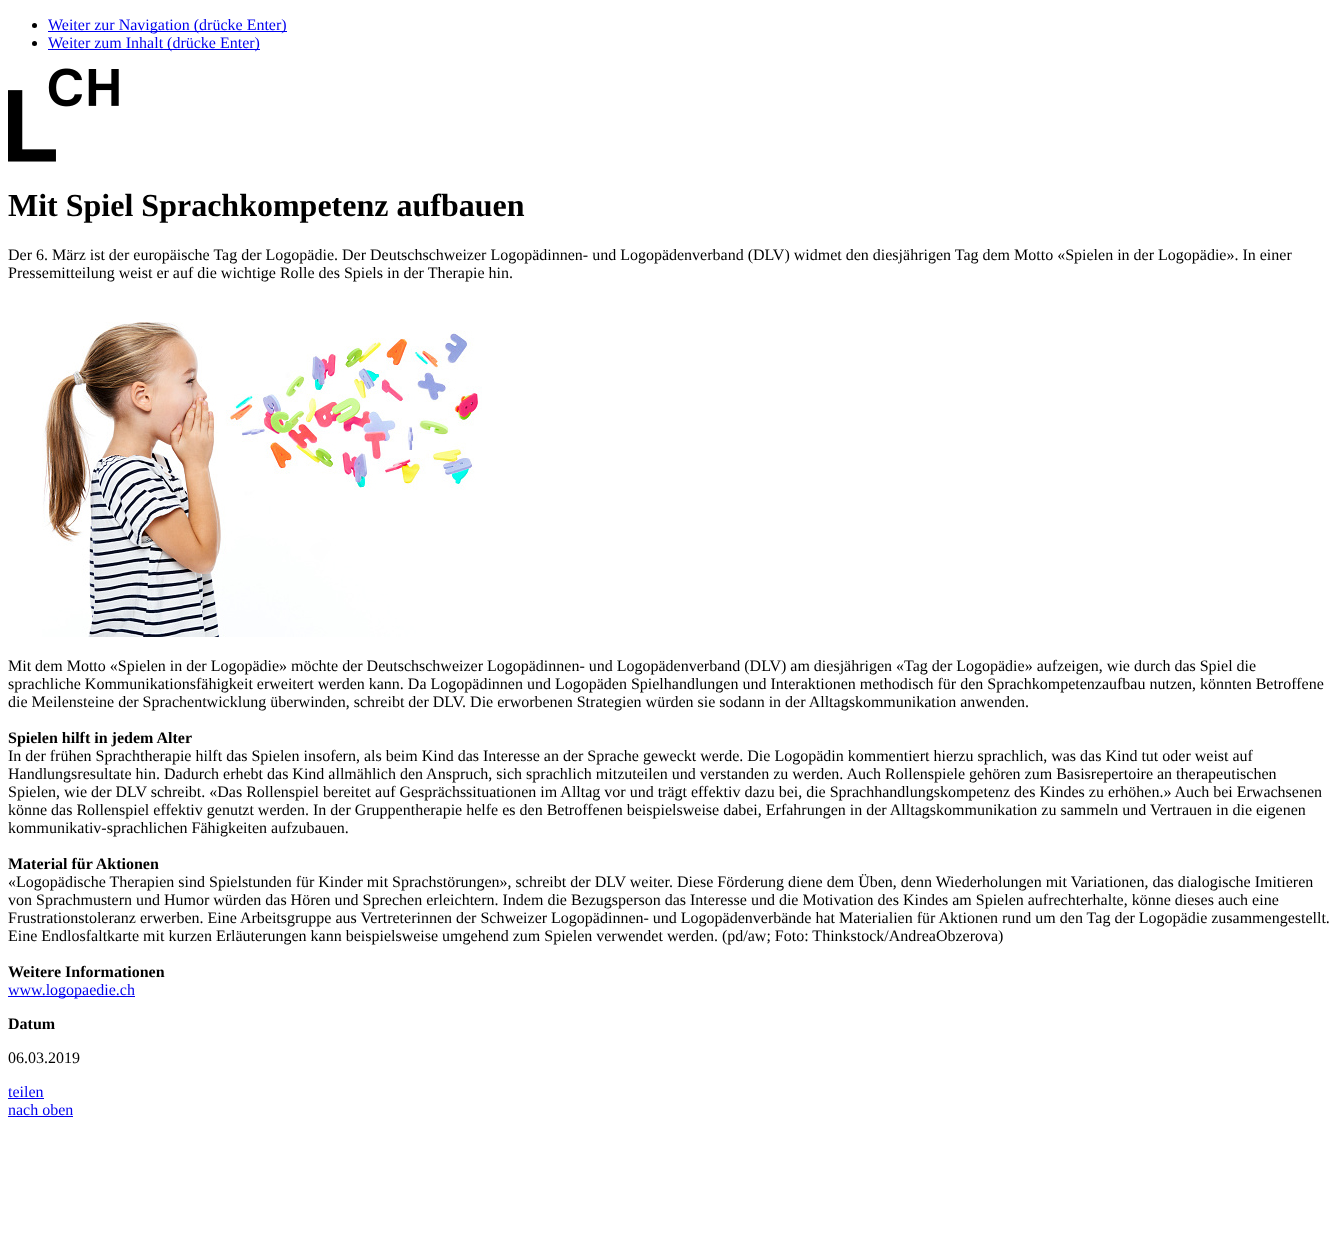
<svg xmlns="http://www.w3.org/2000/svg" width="1338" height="1247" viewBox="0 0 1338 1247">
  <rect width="100%" height="100%" fill="rgb(255,255,255)"/>
  <circle cx="34.5" cy="25.5" r="2.5" fill="rgb(0,0,0)"/>
  <rect x="48" y="31" width="239" height="1" fill="rgb(0,0,238)"/>
  <text x="48" y="30" font-family="Liberation Serif" font-size="16" fill="rgb(0,0,238)">Weiter zur Navigation (drücke Enter)</text>
  <circle cx="34.5" cy="43.5" r="2.5" fill="rgb(0,0,0)"/>
  <rect x="48" y="49" width="212" height="1" fill="rgb(0,0,238)"/>
  <text x="48" y="48" font-family="Liberation Serif" font-size="16" fill="rgb(0,0,238)">Weiter zum Inhalt (drücke Enter)</text>
  <image x="8" y="68" width="111" height="94" href="pic1.png"/>
  <text x="8" y="216" font-family="Liberation Serif" font-size="32" font-weight="bold" fill="rgb(0,0,0)">Mit Spiel Sprachkompetenz aufbauen</text>
  <g font-family="Liberation Serif" font-size="16" fill="rgb(0,0,0)">
    <text>
      <tspan x="8" y="260">Der 6. März ist der europäische Tag der Logopädie. Der Deutschschweizer Logopädinnen- und Logopädenverband (DLV) widmet den diesjährigen Tag dem Motto «Spielen in der Logopädie». In einer</tspan>
      <tspan x="8" y="278">Pressemitteilung weist er auf die wichtige Rolle des Spiels in der Therapie hin.</tspan>
    </text>
  </g>
  <image x="42" y="322" width="440" height="315" href="pic2.png"/>
  <g font-family="Liberation Serif" font-size="16" fill="rgb(0,0,0)">
    <text>
      <tspan x="8" y="671">Mit dem Motto «Spielen in der Logopädie» möchte der Deutschschweizer Logopädinnen- und Logopädenverband (DLV) am diesjährigen «Tag der Logopädie» aufzeigen, wie durch das Spiel die</tspan>
      <tspan x="8" y="689">sprachliche Kommunikationsfähigkeit erweitert werden kann. Da Logopädinnen und Logopäden Spielhandlungen und Interaktionen methodisch für den Sprachkompetenzaufbau nutzen, könnten Betroffene</tspan>
      <tspan x="8" y="707">die Meilensteine der Sprachentwicklung überwinden, schreibt der DLV. Die erworbenen Strategien würden sie sodann in der Alltagskommunikation anwenden.</tspan>
    </text>
  </g>
  <text x="8" y="743" font-family="Liberation Serif" font-size="16" font-weight="bold" fill="rgb(0,0,0)">Spielen hilft in jedem Alter</text>
  <g font-family="Liberation Serif" font-size="16" fill="rgb(0,0,0)">
    <text>
      <tspan x="8" y="761">In der frühen Sprachtherapie hilft das Spielen insofern, als beim Kind das Interesse an der Sprache geweckt werde. Die Logopädin kommentiert hierzu sprachlich, was das Kind tut oder weist auf</tspan>
      <tspan x="8" y="779">Handlungsresultate hin. Dadurch erhebt das Kind allmählich den Anspruch, sich sprachlich mitzuteilen und verstanden zu werden. Auch Rollenspiele gehören zum Basisrepertoire an therapeutischen</tspan>
      <tspan x="8" y="797">Spielen, wie der DLV schreibt. «Das Rollenspiel bereitet auf Gesprächssituationen im Alltag vor und trägt effektiv dazu bei, die Sprachhandlungskompetenz des Kindes zu erhöhen.» Auch bei Erwachsenen</tspan>
      <tspan x="8" y="815">könne das Rollenspiel effektiv genutzt werden. In der Gruppentherapie helfe es den Betroffenen beispielsweise dabei, Erfahrungen in der Alltagskommunikation zu sammeln und Vertrauen in die eigenen</tspan>
      <tspan x="8" y="833">kommunikativ-sprachlichen Fähigkeiten aufzubauen.</tspan>
    </text>
  </g>
  <text x="8" y="869" font-family="Liberation Serif" font-size="16" font-weight="bold" fill="rgb(0,0,0)">Material für Aktionen</text>
  <g font-family="Liberation Serif" font-size="16" fill="rgb(0,0,0)">
    <text>
      <tspan x="8" y="887">«Logopädische Therapien sind Spielstunden für Kinder mit Sprachstörungen», schreibt der DLV weiter. Diese Förderung diene dem Üben, denn Wiederholungen mit Variationen, das dialogische Imitieren</tspan>
      <tspan x="8" y="905">von Sprachmustern und Humor würden das Hören und Sprechen erleichtern. Indem die Bezugsperson das Interesse und die Motivation des Kindes am Spielen aufrechterhalte, könne dieses auch eine</tspan>
      <tspan x="8" y="923">Frustrationstoleranz erwerben. Eine Arbeitsgruppe aus Vertreterinnen der Schweizer Logopädinnen- und Logopädenverbände hat Materialien für Aktionen rund um den Tag der Logopädie zusammengestellt.</tspan>
      <tspan x="8" y="941">Eine Endlosfaltkarte mit kurzen Erläuterungen kann beispielsweise umgehend zum Spielen verwendet werden. (pd/aw; Foto: Thinkstock/AndreaObzerova)</tspan>
    </text>
  </g>
  <text x="8" y="977" font-family="Liberation Serif" font-size="16" font-weight="bold" fill="rgb(0,0,0)">Weitere Informationen</text>
  <rect x="8" y="996" width="127" height="1" fill="rgb(0,0,238)"/>
  <text x="8" y="995" font-family="Liberation Serif" font-size="16" fill="rgb(0,0,238)">www.logopaedie.ch</text>
  <text x="8" y="1029" font-family="Liberation Serif" font-size="16" font-weight="bold" fill="rgb(0,0,0)">Datum</text>
  <text x="8" y="1063" font-family="Liberation Serif" font-size="16" fill="rgb(0,0,0)">06.03.2019</text>
  <text x="8" y="1097" font-family="Liberation Serif" font-size="16" fill="rgb(0,0,238)">teilen</text>
  <rect x="8" y="1098" width="36" height="1" fill="rgb(0,0,238)"/>
  <text x="8" y="1115" font-family="Liberation Serif" font-size="16" fill="rgb(0,0,238)">nach oben</text>
  <rect x="8" y="1116" width="65" height="1" fill="rgb(0,0,238)"/>
</svg>
